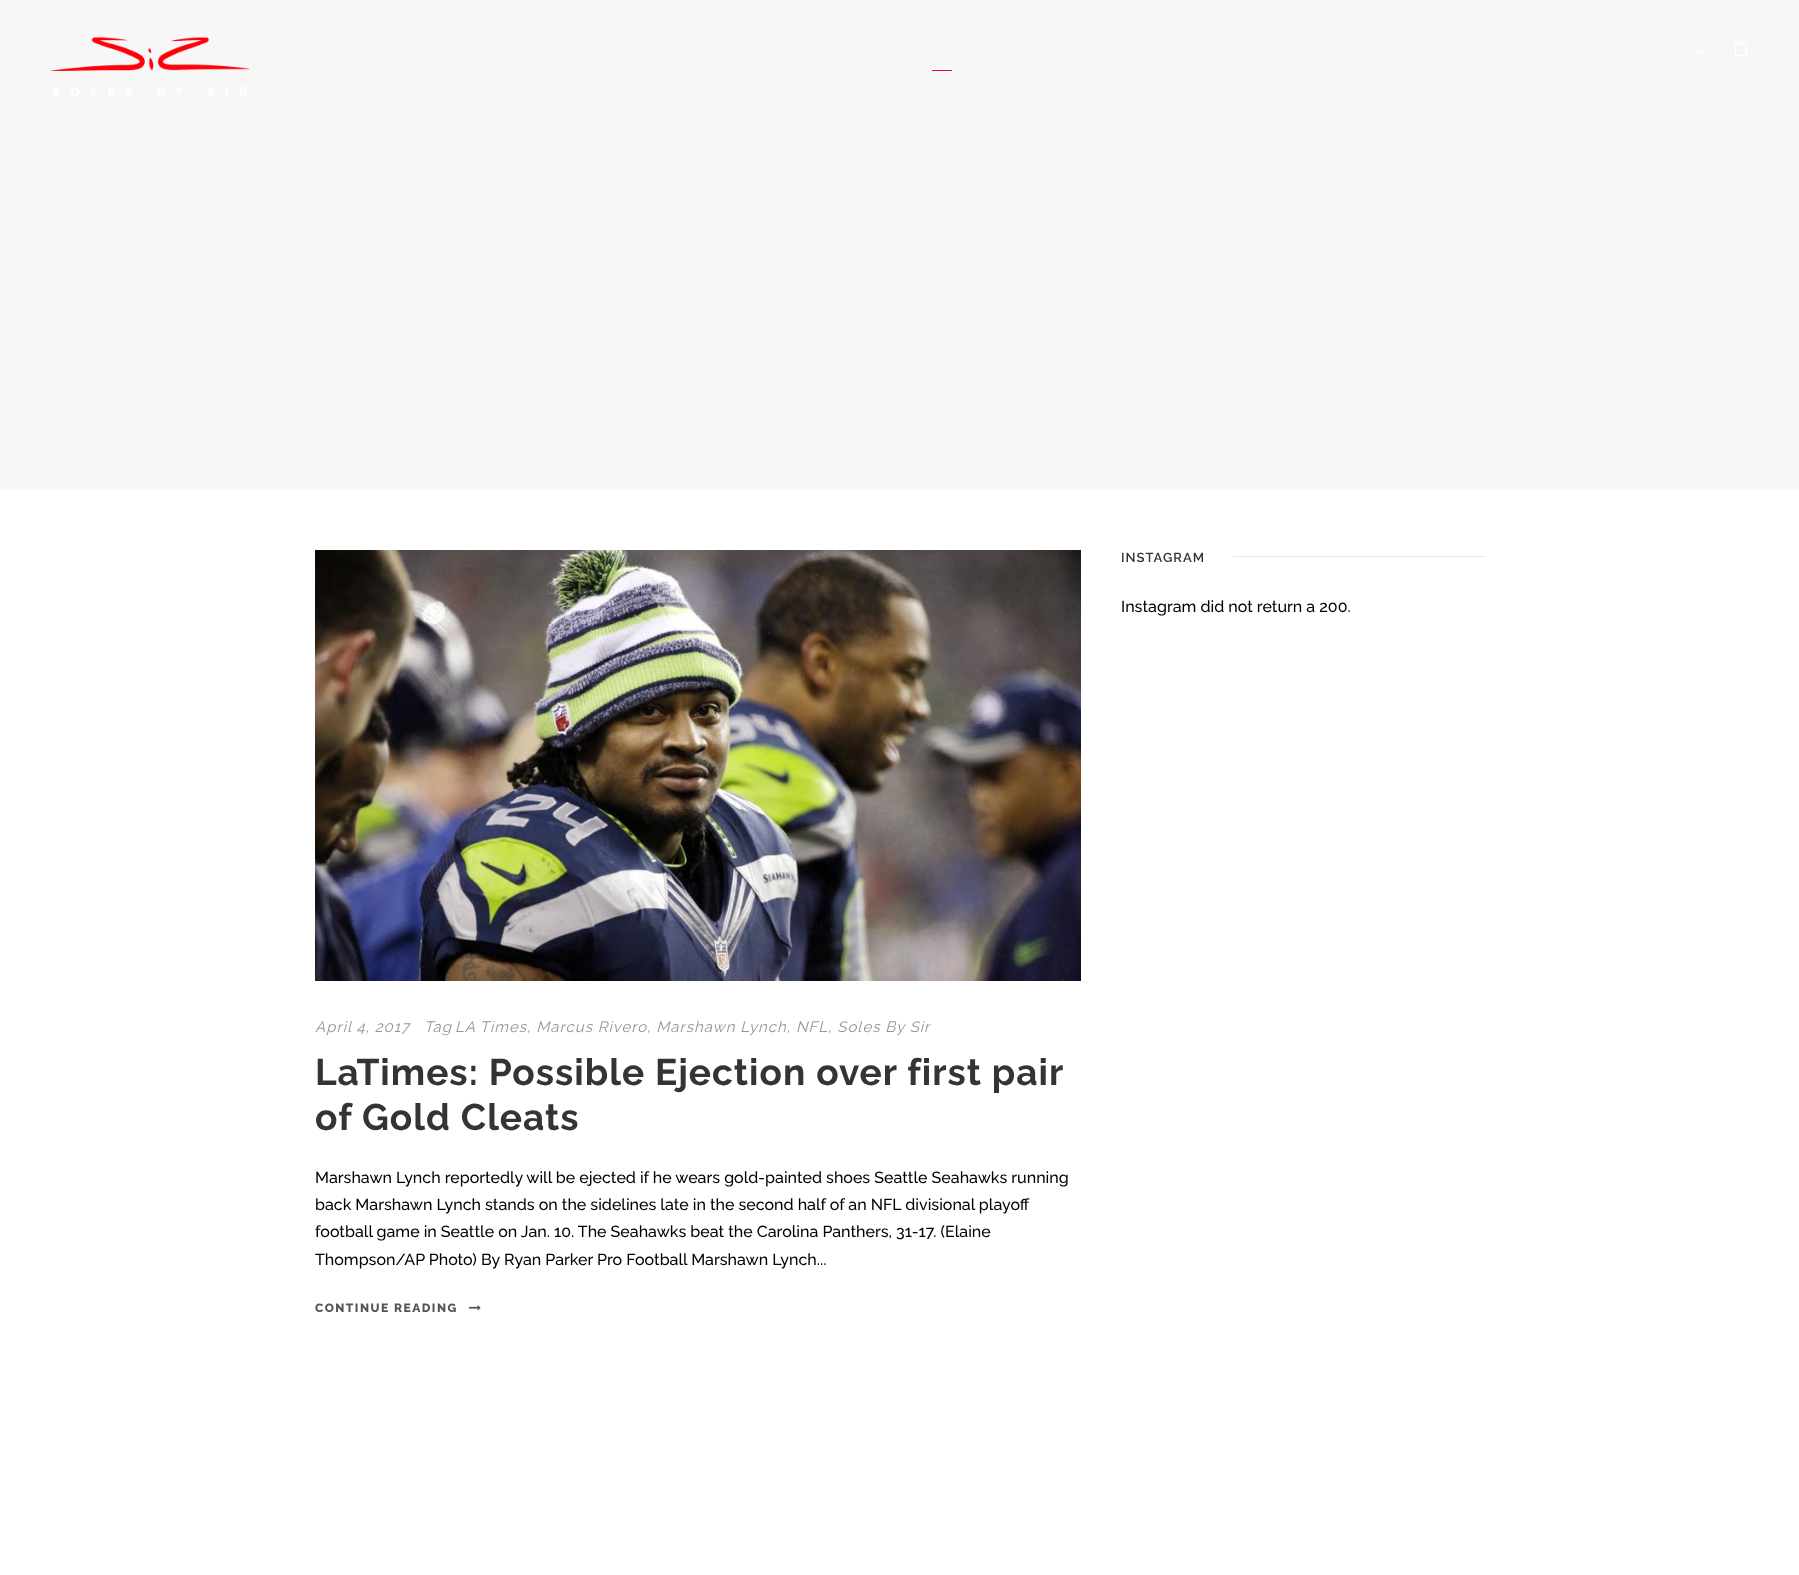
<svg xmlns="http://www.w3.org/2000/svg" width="1799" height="1575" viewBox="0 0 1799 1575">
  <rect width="100%" height="100%" fill="rgb(255,255,255)"/>
  <rect x="0" y="0" width="1799" height="490" fill="rgb(247,247,247)"/>
  <image x="50" y="36" width="200" height="60" href="pic1.png"/>
  <image x="1694" y="42" width="14" height="14" href="pic2.png"/>
  <image x="1735" y="40" width="12" height="16" href="pic3.png"/>
  <rect x="932" y="70" width="20" height="1" fill="rgb(235,0,69)"/>
  <text x="1121" y="562" font-family="Raleway" font-size="13" font-weight="600" letter-spacing="1" fill="rgb(52,52,52)">INSTAGRAM</text>
  <rect x="1233" y="556" width="252" height="1" fill="rgb(234,234,234)"/>
  <text x="1121" y="612" font-family="Raleway" font-size="16" font-weight="500" fill="rgb(0,0,0)">Instagram did not return a 200.</text>
  <image x="315" y="550" width="766" height="431" href="pic4.png"/>
  <g font-family="Raleway" font-size="15" font-style="italic" letter-spacing="1" fill="rgb(149,149,149)">
    <text x="315" y="1032">April 4, 2017</text>
    <text x="424" y="1032">Tag</text>
    <text x="455" y="1032">LA Times, Marcus Rivero, Marshawn Lynch, NFL, Soles By Sir</text>
  </g>
  <g font-family="Raleway" font-size="37" font-weight="bold" letter-spacing="1" fill="rgb(52,52,52)">
    <text>
      <tspan x="315" y="1085">LaTimes: Possible Ejection over first pair</tspan>
      <tspan x="315" y="1130">of Gold Cleats</tspan>
    </text>
  </g>
  <g font-family="Raleway" font-size="16" font-weight="500" fill="rgb(0,0,0)">
    <text>
      <tspan x="315" y="1183">Marshawn Lynch reportedly will be ejected if he wears gold-painted shoes Seattle Seahawks running</tspan>
      <tspan x="315" y="1210">back Marshawn Lynch stands on the sidelines late in the second half of an NFL divisional playoff</tspan>
      <tspan x="315" y="1237">football game in Seattle on Jan. 10. The Seahawks beat the Carolina Panthers, 31-17. (Elaine</tspan>
      <tspan x="315" y="1265">Thompson/AP Photo) By Ryan Parker Pro Football Marshawn Lynch...</tspan>
    </text>
  </g>
  <text x="315" y="1312" font-family="Raleway" font-size="12" font-weight="800" letter-spacing="1.5" fill="rgb(84,84,84)">CONTINUE READING</text>
  <image x="469" y="1305" width="12" height="6" href="pic5.png"/>
</svg>
